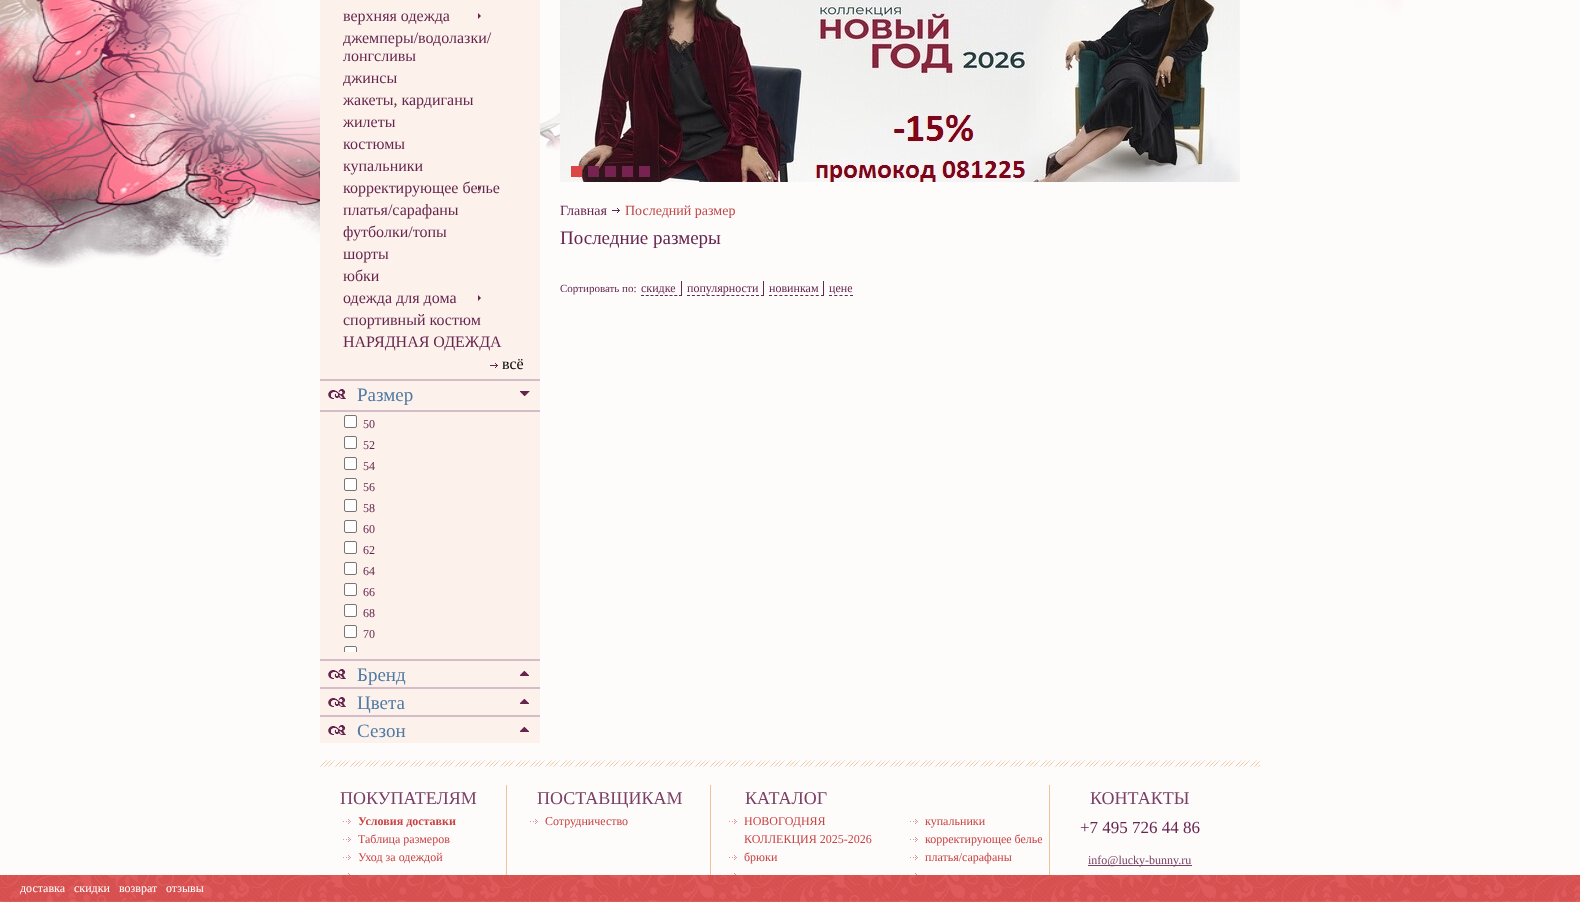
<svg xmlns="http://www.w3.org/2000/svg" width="1580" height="902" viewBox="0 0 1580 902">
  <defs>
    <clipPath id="clip1"><rect x="340" y="412" width="200" height="240"/></clipPath>
  </defs>
  <rect width="100%" height="100%" fill="rgb(254,251,251)"/>
  <image x="0" y="0" width="1403" height="268" href="pic1.png"/>
  <rect x="320" y="0" width="220" height="743" fill="rgb(252,242,235)"/>
  <text x="343" y="21" font-family="Liberation Serif" font-size="16" fill="rgb(102,38,80)">верхняя одежда</text>
  <path d="M478 19V13L481 16Z" fill="rgb(102,38,80)"/>
  <g font-family="Liberation Serif" font-size="16" fill="rgb(102,38,80)">
    <text>
      <tspan x="343" y="43">джемперы/водолазки/</tspan>
      <tspan x="343" y="61">лонгсливы</tspan>
      <tspan x="343" y="83">джинсы</tspan>
      <tspan x="343" y="105">жакеты, кардиганы</tspan>
      <tspan x="343" y="127">жилеты</tspan>
      <tspan x="343" y="149">костюмы</tspan>
      <tspan x="343" y="171">купальники</tspan>
      <tspan x="343" y="193">корректирующее белье</tspan>
    </text>
  </g>
  <path d="M478 191V185L481 188Z" fill="rgb(102,38,80)"/>
  <g font-family="Liberation Serif" font-size="16" fill="rgb(102,38,80)">
    <text>
      <tspan x="343" y="215">платья/сарафаны</tspan>
      <tspan x="343" y="237">футболки/топы</tspan>
      <tspan x="343" y="259">шорты</tspan>
      <tspan x="343" y="281">юбки</tspan>
      <tspan x="343" y="303">одежда для дома</tspan>
    </text>
  </g>
  <path d="M478 301V295L481 298Z" fill="rgb(102,38,80)"/>
  <g font-family="Liberation Serif" font-size="16" fill="rgb(102,38,80)">
    <text>
      <tspan x="343" y="325">спортивный костюм</tspan>
      <tspan x="343" y="347">НАРЯДНАЯ ОДЕЖДА</tspan>
    </text>
  </g>
  <image x="490" y="363" width="8" height="5" href="pic2.png"/>
  <text x="502" y="369" font-family="Liberation Serif" font-size="16" fill="rgb(0,0,0)">всё</text>
  <image x="328" y="389" width="18" height="10" href="pic3.png"/>
  <rect x="320" y="379" width="220" height="2" fill="rgb(212,189,200)"/>
  <text x="357" y="401" font-family="Liberation Serif" font-size="19" fill="rgb(80,122,164)">Размер</text>
  <image x="520" y="391" width="10" height="5" href="pic4.png"/>
  <rect x="320" y="410" width="220" height="2" fill="rgb(212,189,200)"/>
  <rect x="344.5" y="415.5" width="12" height="12" rx="1.5" fill="rgb(255,255,255)" stroke="rgb(118,118,118)"/>
  <text x="363" y="428" font-family="Liberation Serif" font-size="12" fill="rgb(102,38,80)">50</text>
  <rect x="344.5" y="436.5" width="12" height="12" rx="1.5" fill="rgb(255,255,255)" stroke="rgb(118,118,118)"/>
  <text x="363" y="449" font-family="Liberation Serif" font-size="12" fill="rgb(102,38,80)">52</text>
  <rect x="344.5" y="457.5" width="12" height="12" rx="1.5" fill="rgb(255,255,255)" stroke="rgb(118,118,118)"/>
  <text x="363" y="470" font-family="Liberation Serif" font-size="12" fill="rgb(102,38,80)">54</text>
  <rect x="344.5" y="478.5" width="12" height="12" rx="1.5" fill="rgb(255,255,255)" stroke="rgb(118,118,118)"/>
  <text x="363" y="491" font-family="Liberation Serif" font-size="12" fill="rgb(102,38,80)">56</text>
  <rect x="344.5" y="499.5" width="12" height="12" rx="1.5" fill="rgb(255,255,255)" stroke="rgb(118,118,118)"/>
  <text x="363" y="512" font-family="Liberation Serif" font-size="12" fill="rgb(102,38,80)">58</text>
  <rect x="344.5" y="520.5" width="12" height="12" rx="1.5" fill="rgb(255,255,255)" stroke="rgb(118,118,118)"/>
  <text x="363" y="533" font-family="Liberation Serif" font-size="12" fill="rgb(102,38,80)">60</text>
  <rect x="344.5" y="541.5" width="12" height="12" rx="1.5" fill="rgb(255,255,255)" stroke="rgb(118,118,118)"/>
  <text x="363" y="554" font-family="Liberation Serif" font-size="12" fill="rgb(102,38,80)">62</text>
  <rect x="344.5" y="562.5" width="12" height="12" rx="1.5" fill="rgb(255,255,255)" stroke="rgb(118,118,118)"/>
  <text x="363" y="575" font-family="Liberation Serif" font-size="12" fill="rgb(102,38,80)">64</text>
  <rect x="344.5" y="583.5" width="12" height="12" rx="1.5" fill="rgb(255,255,255)" stroke="rgb(118,118,118)"/>
  <text x="363" y="596" font-family="Liberation Serif" font-size="12" fill="rgb(102,38,80)">66</text>
  <rect x="344.5" y="604.5" width="12" height="12" rx="1.5" fill="rgb(255,255,255)" stroke="rgb(118,118,118)"/>
  <text x="363" y="617" font-family="Liberation Serif" font-size="12" fill="rgb(102,38,80)">68</text>
  <rect x="344.5" y="625.5" width="12" height="12" rx="1.5" fill="rgb(255,255,255)" stroke="rgb(118,118,118)"/>
  <text x="363" y="638" font-family="Liberation Serif" font-size="12" fill="rgb(102,38,80)">70</text>
  <path d="M346 646H355C356 646 357 647 357 648V652H344V648C344 647 345 646 346 646Z" fill="rgb(255,255,255)"/>
  <g clip-path="url(#clip1)">
    <rect x="344.5" y="646.5" width="12" height="12" rx="1.5" fill="none" stroke="rgb(118,118,118)"/>
  </g>
  <image x="328" y="669" width="18" height="10" href="pic3.png"/>
  <rect x="320" y="659" width="220" height="2" fill="rgb(212,189,200)"/>
  <text x="357" y="681" font-family="Liberation Serif" font-size="19" fill="rgb(80,122,164)">Бренд</text>
  <image x="520" y="671" width="9" height="5" href="pic5.png"/>
  <image x="328" y="697" width="18" height="10" href="pic3.png"/>
  <rect x="320" y="687" width="220" height="2" fill="rgb(212,189,200)"/>
  <text x="357" y="709" font-family="Liberation Serif" font-size="19" fill="rgb(80,122,164)">Цвета</text>
  <image x="520" y="699" width="9" height="5" href="pic5.png"/>
  <image x="328" y="725" width="18" height="10" href="pic3.png"/>
  <rect x="320" y="715" width="220" height="2" fill="rgb(212,189,200)"/>
  <text x="357" y="737" font-family="Liberation Serif" font-size="19" fill="rgb(80,122,164)">Сезон</text>
  <image x="520" y="727" width="9" height="5" href="pic5.png"/>
  <image x="560" y="0" width="680" height="182" href="pic6.png"/>
  <rect x="571" y="166" width="11" height="11" fill="rgb(221,70,70)"/>
  <rect x="588" y="166" width="11" height="11" fill="rgb(119,35,82)"/>
  <rect x="605" y="166" width="11" height="11" fill="rgb(119,35,82)"/>
  <rect x="622" y="166" width="11" height="11" fill="rgb(119,35,82)"/>
  <rect x="639" y="166" width="11" height="11" fill="rgb(119,35,82)"/>
  <text x="560" y="215" font-family="Liberation Serif" font-size="14" fill="rgb(102,38,80)">Главная</text>
  <image x="612" y="208" width="8" height="5" href="pic7.png"/>
  <text x="625" y="215" font-family="Liberation Serif" font-size="14" fill="rgb(192,72,72)">Последний размер</text>
  <text x="560" y="244" font-family="Liberation Serif" font-size="19" fill="rgb(102,38,80)">Последние размеры</text>
  <text x="560" y="292" font-family="Liberation Serif" font-size="11" fill="rgb(102,38,80)">Сортировать по:</text>
  <text x="641" y="292" font-family="Liberation Serif" font-size="12" fill="rgb(102,38,80)">скидке</text>
  <rect x="681" y="281" width="1" height="15" fill="rgb(102,38,80)"/>
  <path d="M641 295.5H682" fill="none" stroke="rgb(102,38,80)" stroke-dasharray="3 1.75"/>
  <text x="687" y="292" font-family="Liberation Serif" font-size="12" fill="rgb(102,38,80)">популярности</text>
  <rect x="763" y="281" width="1" height="15" fill="rgb(102,38,80)"/>
  <path d="M687 295.5H764" fill="none" stroke="rgb(102,38,80)" stroke-dasharray="3 1.93"/>
  <text x="769" y="292" font-family="Liberation Serif" font-size="12" fill="rgb(102,38,80)">новинкам</text>
  <rect x="823" y="281" width="1" height="15" fill="rgb(102,38,80)"/>
  <path d="M769 295.5H824" fill="none" stroke="rgb(102,38,80)" stroke-dasharray="3 2.2"/>
  <text x="829" y="292" font-family="Liberation Serif" font-size="12" fill="rgb(102,38,80)">цене</text>
  <path d="M829 295.5H853" fill="none" stroke="rgb(102,38,80)" stroke-dasharray="3 2.25"/>
  <image x="320" y="760" width="940" height="7" href="pic8.png"/>
  <rect x="506" y="785" width="1" height="117" fill="rgb(237,196,156)"/>
  <text x="340" y="804" font-family="Liberation Serif" font-size="18" fill="rgb(122,65,101)">ПОКУПАТЕЛЯМ</text>
  <image x="343" y="819" width="8" height="5" href="pic9.png"/>
  <text x="358" y="825" font-family="Liberation Serif" font-size="12" font-weight="bold" fill="rgb(199,68,68)">Условия доставки</text>
  <image x="343" y="837" width="8" height="5" href="pic9.png"/>
  <text x="358" y="843" font-family="Liberation Serif" font-size="12" fill="rgb(199,68,68)">Таблица размеров</text>
  <image x="343" y="855" width="8" height="5" href="pic9.png"/>
  <text x="358" y="861" font-family="Liberation Serif" font-size="12" fill="rgb(199,68,68)">Уход за одеждой</text>
  <image x="348" y="873" width="2" height="2" href="pic10.png"/>
  <rect x="710" y="785" width="1" height="117" fill="rgb(237,196,156)"/>
  <text x="537" y="804" font-family="Liberation Serif" font-size="18" fill="rgb(122,65,101)">ПОСТАВЩИКАМ</text>
  <image x="530" y="819" width="8" height="5" href="pic9.png"/>
  <text x="545" y="825" font-family="Liberation Serif" font-size="12" fill="rgb(199,68,68)">Сотрудничество</text>
  <text x="745" y="804" font-family="Liberation Serif" font-size="18" fill="rgb(122,65,101)">КАТАЛОГ</text>
  <image x="729" y="819" width="8" height="5" href="pic9.png"/>
  <g font-family="Liberation Serif" font-size="12" fill="rgb(199,68,68)">
    <text>
      <tspan x="744" y="825">НОВОГОДНЯЯ</tspan>
      <tspan x="744" y="843">КОЛЛЕКЦИЯ 2025-2026</tspan>
    </text>
  </g>
  <image x="729" y="855" width="8" height="5" href="pic9.png"/>
  <text x="744" y="861" font-family="Liberation Serif" font-size="12" fill="rgb(199,68,68)">брюки</text>
  <image x="734" y="873" width="2" height="2" href="pic10.png"/>
  <rect x="1049" y="785" width="1" height="117" fill="rgb(237,196,156)"/>
  <image x="910" y="819" width="8" height="5" href="pic9.png"/>
  <text x="925" y="825" font-family="Liberation Serif" font-size="12" fill="rgb(199,68,68)">купальники</text>
  <image x="910" y="837" width="8" height="5" href="pic9.png"/>
  <text x="925" y="843" font-family="Liberation Serif" font-size="12" fill="rgb(199,68,68)">корректирующее белье</text>
  <image x="910" y="855" width="8" height="5" href="pic9.png"/>
  <text x="925" y="861" font-family="Liberation Serif" font-size="12" fill="rgb(199,68,68)">платья/сарафаны</text>
  <image x="915" y="873" width="2" height="2" href="pic10.png"/>
  <text x="1090" y="804" font-family="Liberation Serif" font-size="18" fill="rgb(122,65,101)">КОНТАКТЫ</text>
  <text x="1080" y="833" font-family="Liberation Serif" font-size="17" fill="rgb(102,38,80)">+7 495 726 44 86</text>
  <rect x="1088" y="865" width="104" height="1" fill="rgb(122,65,101)"/>
  <text x="1088" y="864" font-family="Liberation Serif" font-size="12" fill="rgb(122,65,101)">info@lucky-bunny.ru</text>
  <image x="0" y="875" width="1580" height="27" href="pic11.png"/>
  <g font-family="Liberation Serif" font-size="12" fill="rgb(255,255,255)">
    <text x="20" y="892">доставка</text>
    <text x="74" y="892">скидки</text>
    <text x="119" y="892">возврат</text>
    <text x="166" y="892">отзывы</text>
  </g>
</svg>
